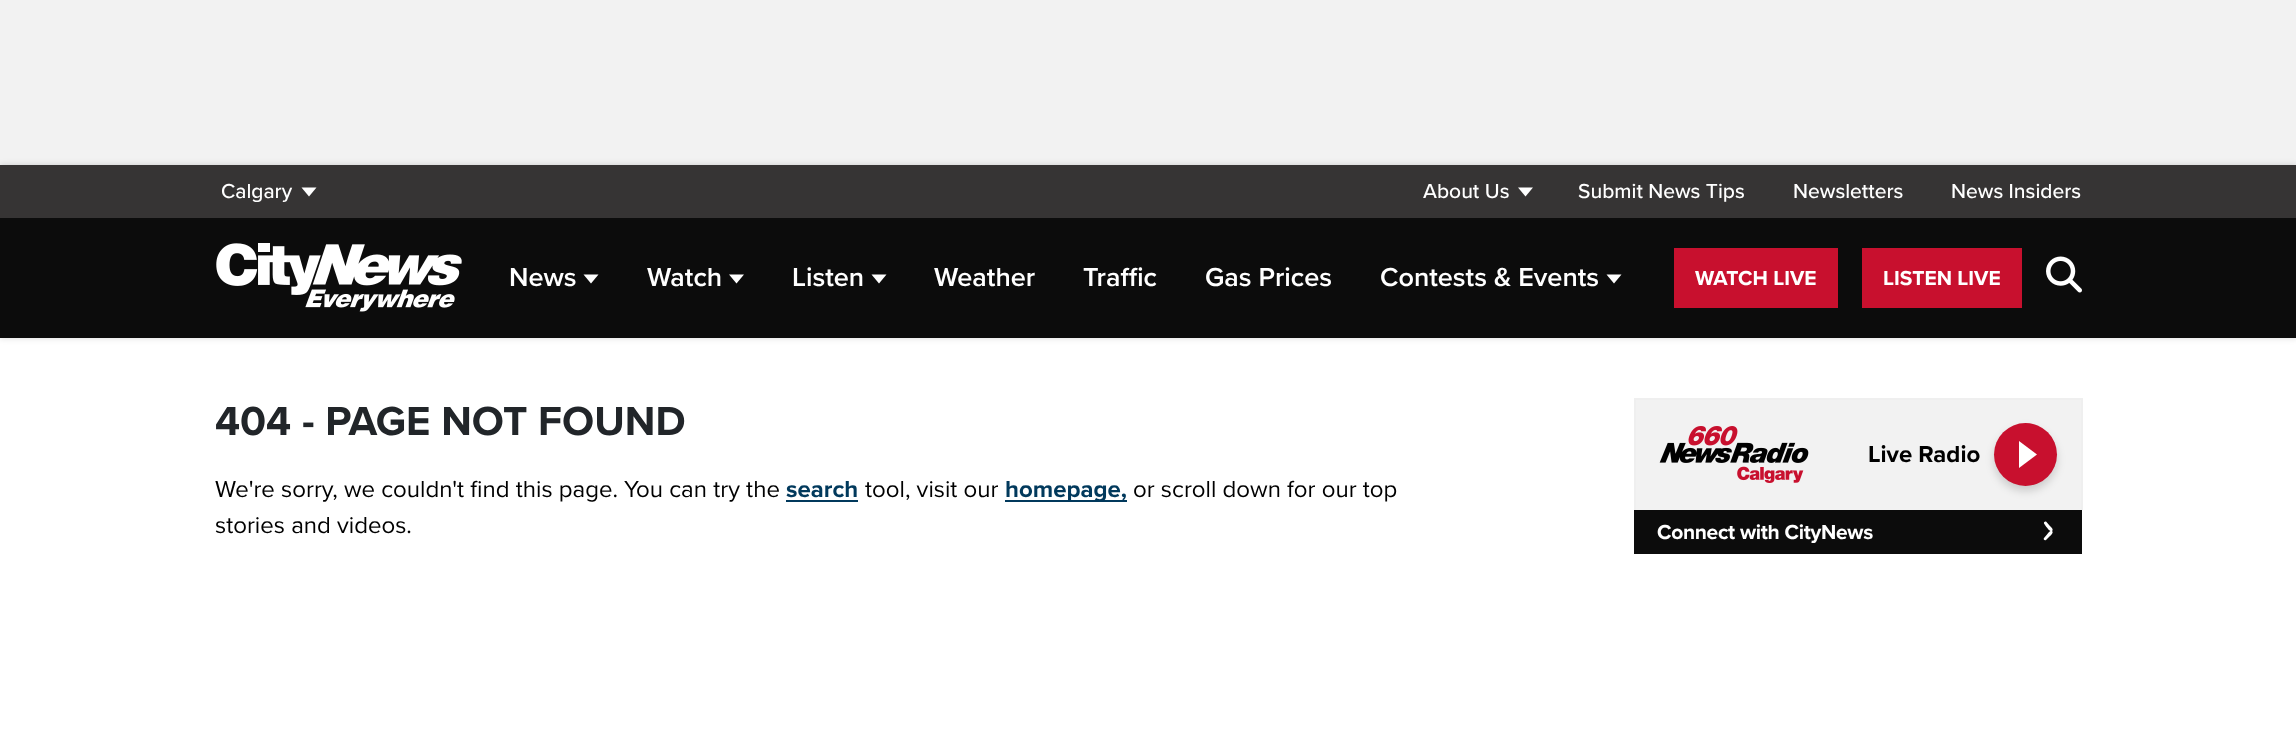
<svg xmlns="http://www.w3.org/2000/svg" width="2296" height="746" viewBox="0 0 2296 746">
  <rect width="100%" height="100%" fill="rgb(255,255,255)"/>
  <rect x="0" y="0" width="2296" height="165" fill="rgb(242,242,242)"/>
  <rect x="0" y="165" width="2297" height="173" fill="rgba(0,0,0,0.15)" filter="blur(3px)"/>
  <rect x="0" y="218" width="2296" height="120" fill="rgb(12,12,12)"/>
  <rect x="0" y="165" width="2296" height="53" fill="rgb(54,52,52)"/>
  <text x="221" y="198" font-family="Proxima Nova" font-size="21" font-weight="500" fill="rgb(255,255,255)">Calgary</text>
  <path d="M301.5 187.5H316.5L309 196.5Z" fill="rgb(255,255,255)"/>
  <text x="1423" y="198" font-family="Proxima Nova" font-size="21" font-weight="500" fill="rgb(255,255,255)">About Us</text>
  <path d="M1518 187.5H1533L1525.5 196.5Z" fill="rgb(255,255,255)"/>
  <g font-family="Proxima Nova" font-size="21" font-weight="500" fill="rgb(255,255,255)">
    <text x="1578" y="198">Submit News Tips</text>
    <text x="1793" y="198">Newsletters</text>
    <text x="1951" y="198">News Insiders</text>
  </g>
  <image x="216" y="243" width="246" height="69" href="pic1.png"/>
  <text x="509" y="286" font-family="Proxima Nova" font-size="27" font-weight="600" fill="rgb(255,255,255)">News</text>
  <path d="M583.5 274.5H598.5L591 283.5Z" fill="rgb(255,255,255)"/>
  <text x="647" y="286" font-family="Proxima Nova" font-size="27" font-weight="600" fill="rgb(255,255,255)">Watch</text>
  <path d="M729 274.5H744L736.5 283.5Z" fill="rgb(255,255,255)"/>
  <text x="792" y="286" font-family="Proxima Nova" font-size="27" font-weight="600" fill="rgb(255,255,255)">Listen</text>
  <path d="M871.5 274.5H886.5L879 283.5Z" fill="rgb(255,255,255)"/>
  <g font-family="Proxima Nova" font-size="27" font-weight="600" fill="rgb(255,255,255)">
    <text x="934" y="286">Weather</text>
    <text x="1083" y="286">Traffic</text>
    <text x="1205" y="286">Gas Prices</text>
    <text x="1380" y="286">Contests &amp; Events</text>
  </g>
  <path d="M1606.5 274.5H1621.5L1614 283.5Z" fill="rgb(255,255,255)"/>
  <rect x="1674" y="248" width="164" height="60" fill="rgb(200,16,46)"/>
  <text x="1695" y="285" font-family="Proxima Nova" font-size="21" font-weight="bold" fill="rgb(255,255,255)">WATCH LIVE</text>
  <rect x="1862" y="248" width="160" height="60" fill="rgb(200,16,46)"/>
  <text x="1883" y="285" font-family="Proxima Nova" font-size="21" font-weight="bold" fill="rgb(255,255,255)">LISTEN LIVE</text>
  <image x="2046" y="256" width="36" height="37" href="pic2.png"/>
  <text x="215" y="435" font-family="Proxima Nova" font-size="42" font-weight="bold" fill="rgb(33,37,41)">404 - PAGE NOT FOUND</text>
  <text x="215" y="497" font-family="Proxima Nova" font-size="24" fill="rgb(0,0,0)">We're sorry, we couldn't find this page. You can try the</text>
  <text x="786" y="497" font-family="Proxima Nova" font-size="24" font-weight="bold" fill="rgb(1,57,92)">search</text>
  <rect x="786" y="500" width="72" height="2" fill="rgb(1,57,92)"/>
  <text x="865" y="497" font-family="Proxima Nova" font-size="24" fill="rgb(0,0,0)">tool, visit our</text>
  <rect x="1005" y="500" width="122" height="2" fill="rgb(1,57,92)"/>
  <text x="1005" y="497" font-family="Proxima Nova" font-size="24" font-weight="bold" fill="rgb(1,57,92)">homepage,</text>
  <g font-family="Proxima Nova" font-size="24" fill="rgb(0,0,0)">
    <text x="1133" y="497">or scroll down for our top</text>
    <text x="215" y="533">stories and videos.</text>
  </g>
  <rect x="1636" y="400" width="445" height="110" fill="rgb(242,242,242)"/>
  <rect x="1634" y="398" width="448" height="2" fill="rgb(239,239,239)"/>
  <rect x="2081" y="398" width="2" height="112" fill="rgb(239,239,239)"/>
  <rect x="1634" y="398" width="2" height="112" fill="rgb(239,239,239)"/>
  <image x="1659" y="426" width="150" height="57" href="pic3.png"/>
  <text x="1868" y="462" font-family="Proxima Nova" font-size="24" font-weight="bold" fill="rgb(0,0,0)">Live Radio</text>
  <rect x="1994" y="428" width="63" height="63" rx="31.5" fill="rgba(0,0,0,0.16)" filter="blur(4.5px)"/>
  <circle cx="2025.5" cy="454.5" r="31.5" fill="rgb(200,16,46)"/>
  <path d="M2019 468V441L2037 454.5Z" fill="rgb(255,255,255)"/>
  <rect x="1634" y="510" width="448" height="44" fill="rgb(12,12,12)"/>
  <text x="1657" y="539" font-family="Proxima Nova" font-size="21" font-weight="bold" letter-spacing="-0.3" fill="rgb(255,255,255)">Connect with CityNews</text>
  <path d="M2046.5 522L2049.5 525.5C2050.5 526.5 2053.5 529 2052.5 530.5C2050.5 533 2047 527.5 2046 526.5L2044 523.5C2043.5 522 2045.5 521 2046.5 522Z" fill="rgb(255,255,255)"/>
  <path d="M2044 538L2047 534.5C2048 533.5 2050 530 2052 531C2054.5 532.5 2049.5 536.5 2048.5 537.5L2046 540C2044.5 541 2043 539 2044 538Z" fill="rgb(255,255,255)"/>
</svg>
